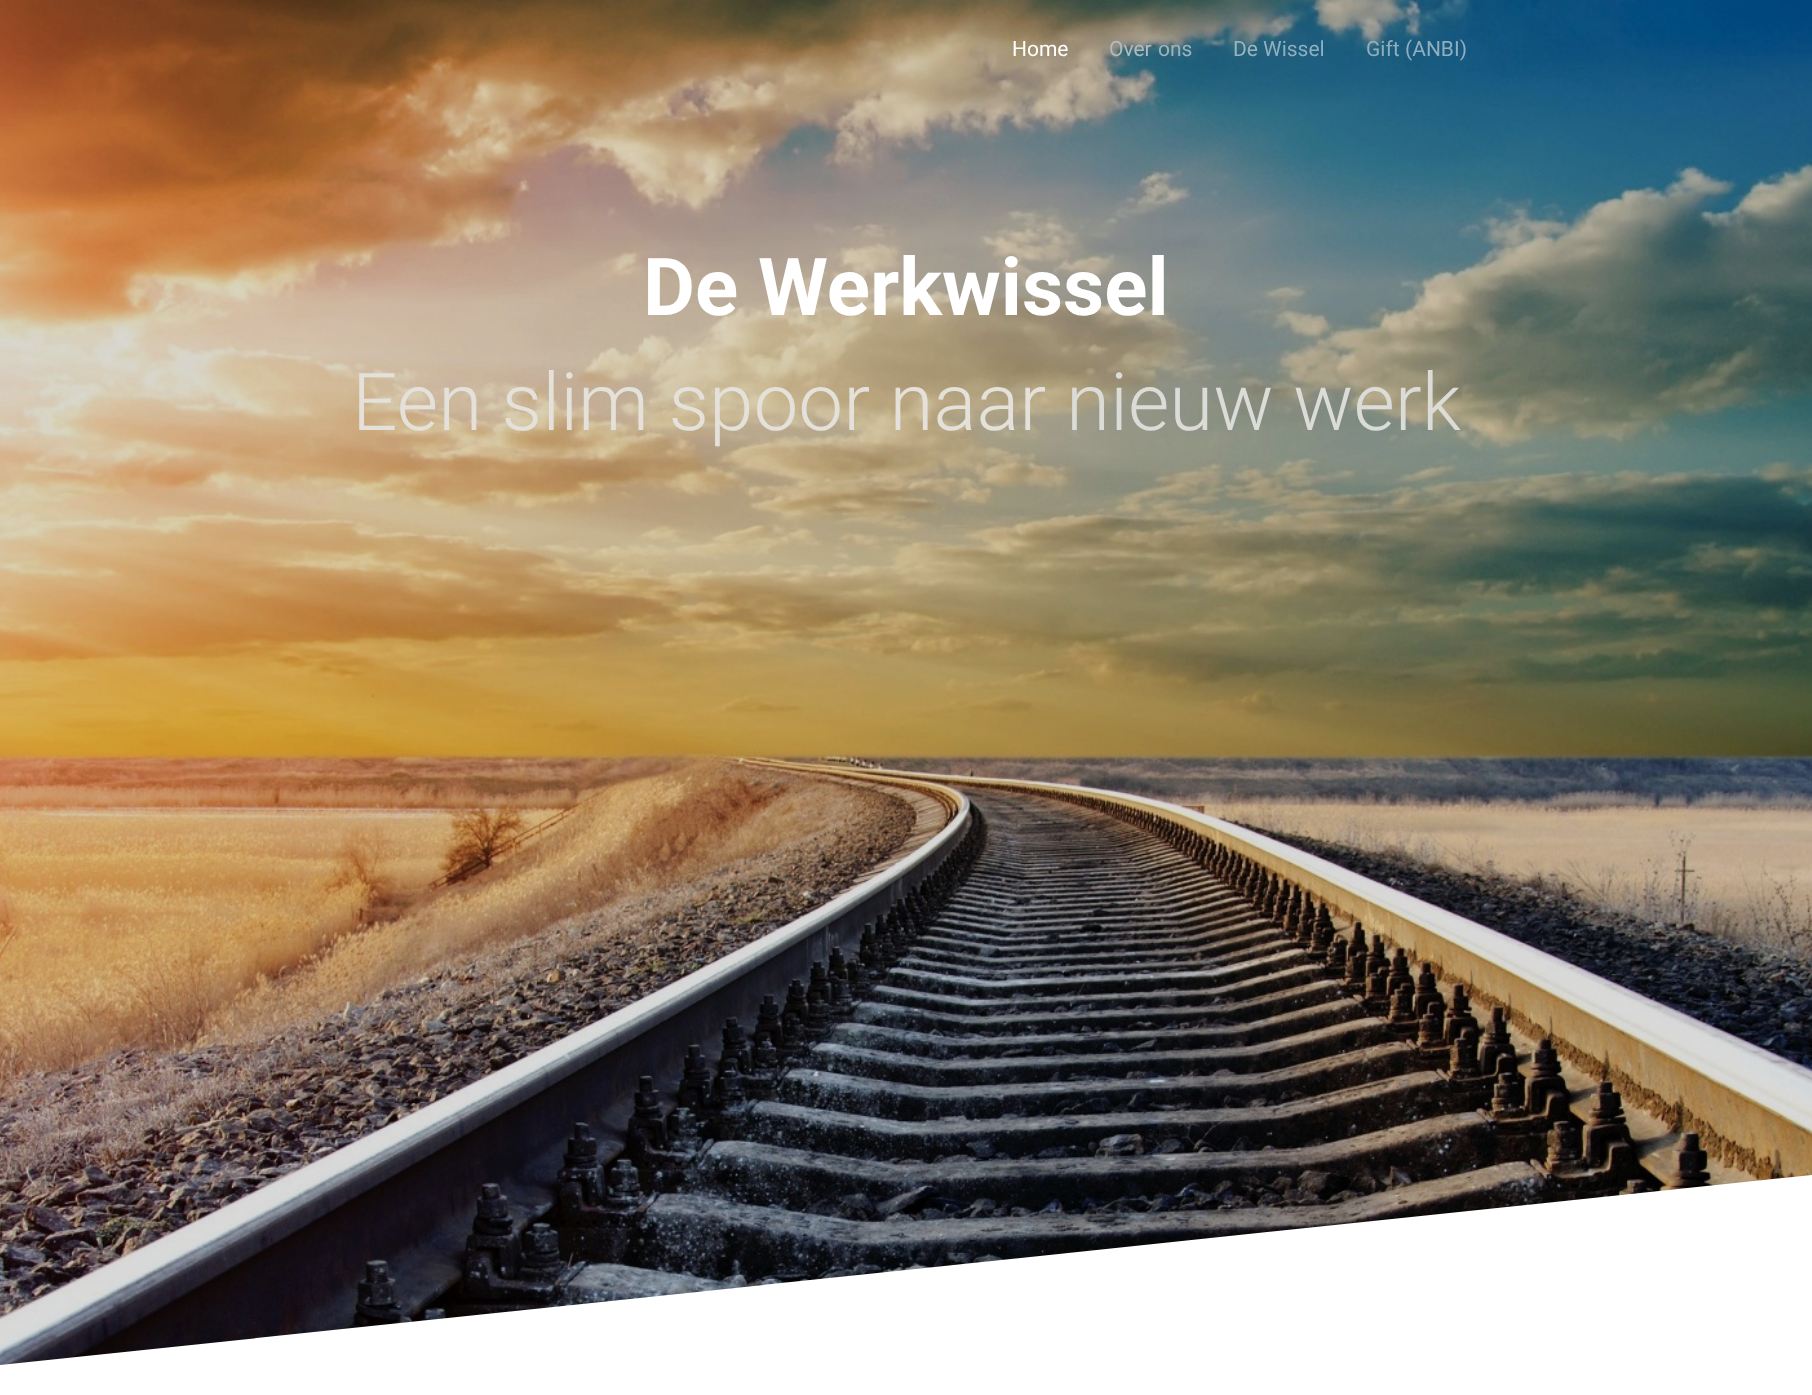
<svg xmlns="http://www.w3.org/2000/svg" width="1812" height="1395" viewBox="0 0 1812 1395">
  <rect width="100%" height="100%" fill="rgb(255,255,255)"/>
  <image x="0" y="0" width="1812" height="1365" href="pic1.png"/>
  <text x="1012" y="56" font-family="Roboto" font-size="21" fill="rgb(255,255,255)">Home</text>
  <text x="1109" y="56" font-family="Roboto" font-size="21" fill="rgb(175,187,189)">Over</text>
  <g font-family="Roboto" font-size="21" fill="rgb(155,180,188)">
    <text x="1158" y="56">ons</text>
    <text x="1233" y="56">De</text>
  </g>
  <g font-family="Roboto" font-size="21" fill="rgb(143,174,190)">
    <text x="1263" y="56">Wissel</text>
    <text x="1366" y="56">Gift</text>
    <text x="1405" y="56">(ANBI)</text>
  </g>
  <text x="643" y="315" font-family="Roboto" font-size="80" font-weight="bold" fill="rgb(255,255,255)">De Werkwissel</text>
  <text x="352" y="430" font-family="Roboto" font-size="80" font-weight="300" fill="rgb(228,225,219)">Een slim spoor naar</text>
  <text x="1066" y="430" font-family="Roboto" font-size="80" font-weight="300" fill="rgb(219,219,216)">nieuw werk</text>
  <path d="M0 1365L1812 1175V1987L0 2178Z" fill="rgb(255,255,255)"/>
</svg>
